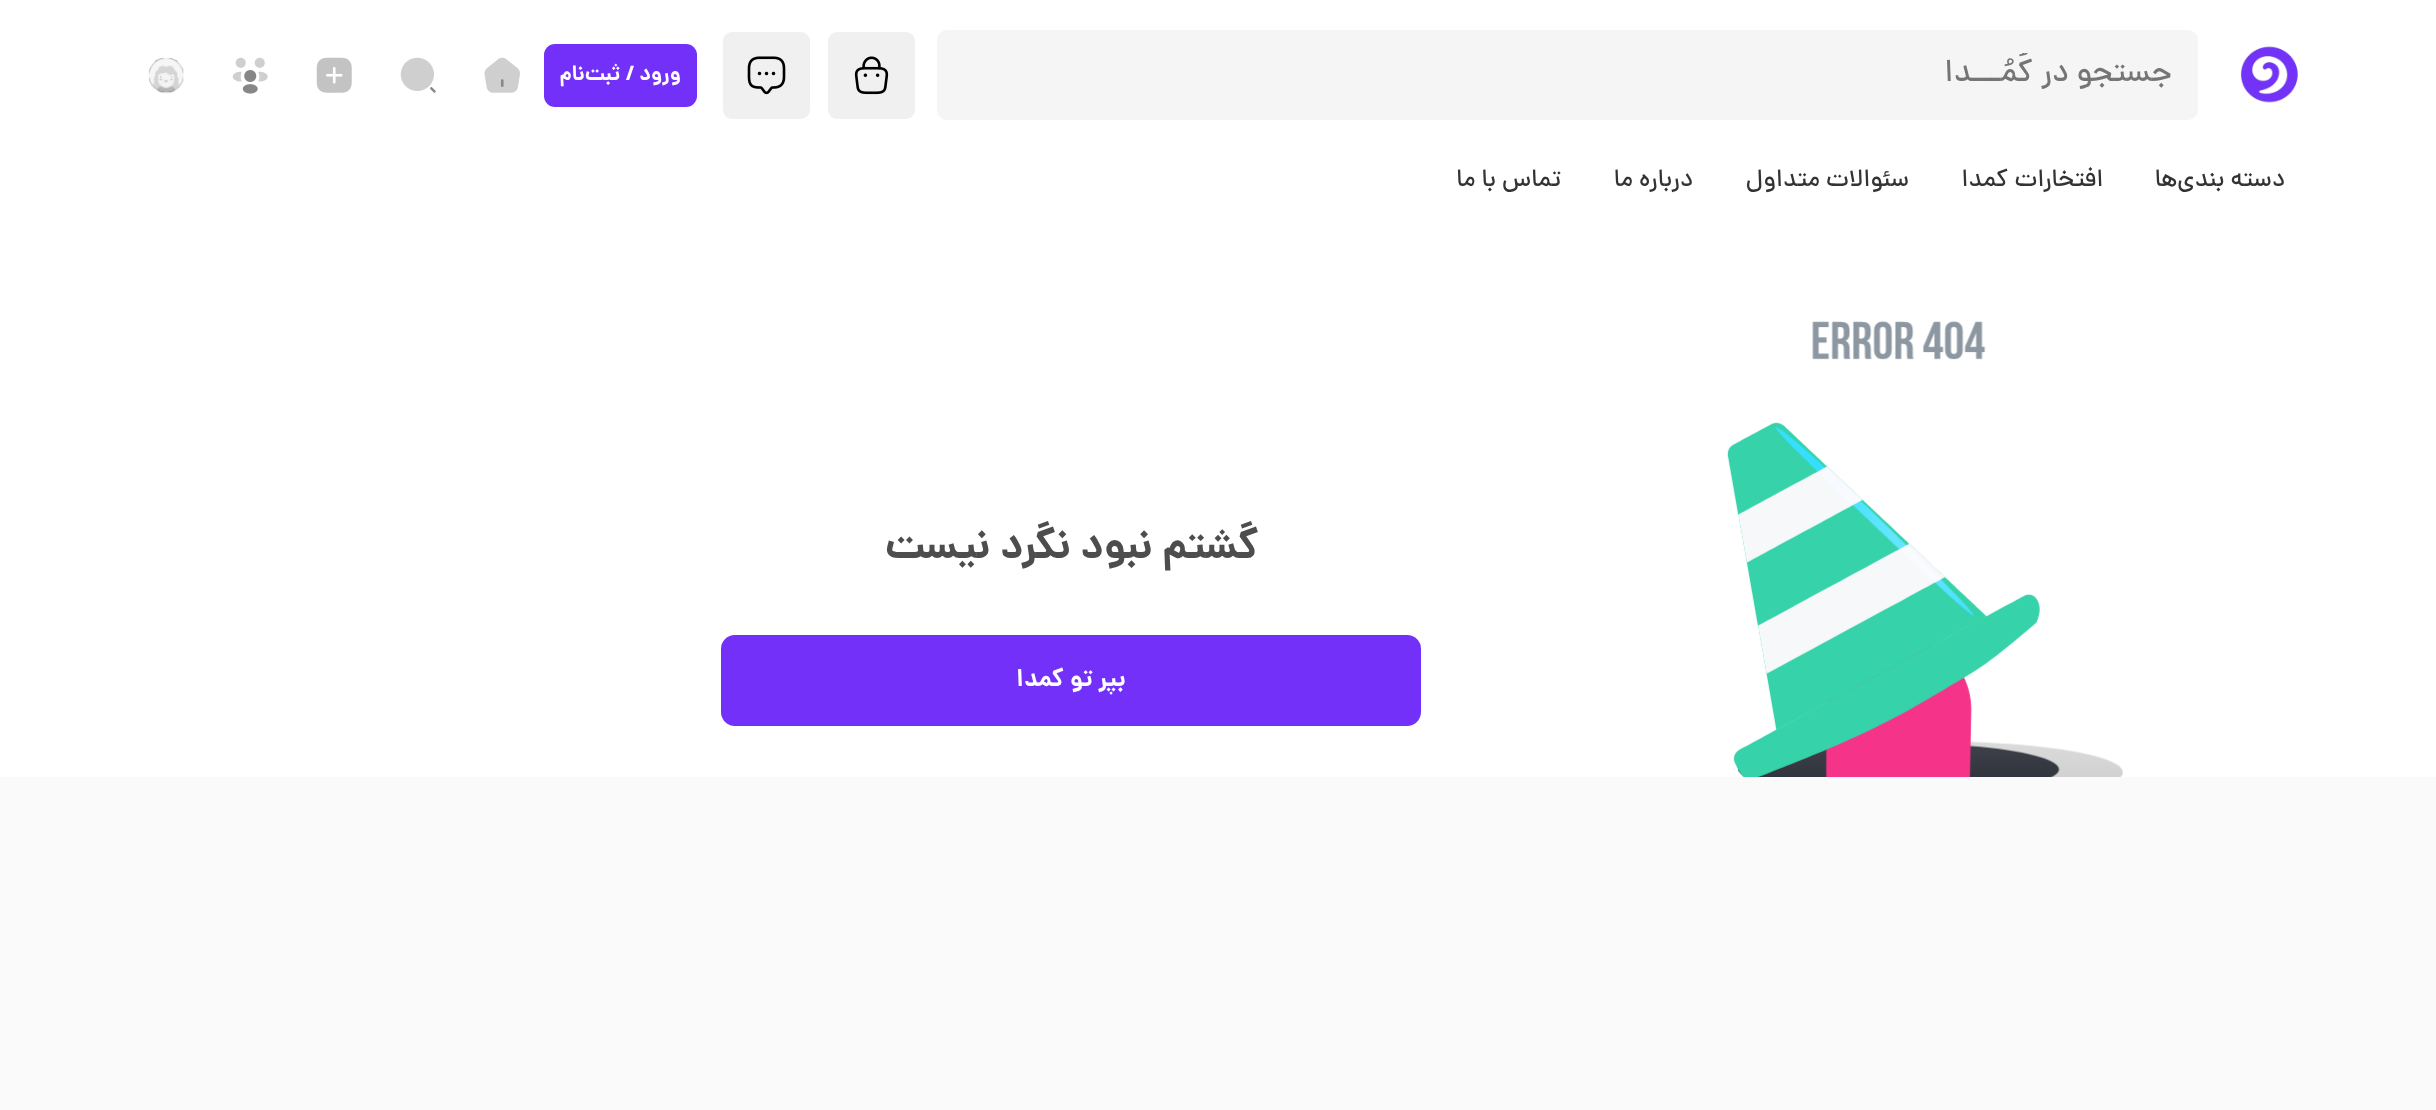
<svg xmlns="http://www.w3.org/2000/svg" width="2436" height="1110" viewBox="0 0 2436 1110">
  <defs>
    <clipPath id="clip1"><rect x="963" y="53" width="1209" height="47"/></clipPath>
  </defs>
  <rect width="100%" height="100%" fill="rgb(250,250,250)"/>
  <rect x="0" y="0" width="2436" height="777" fill="rgb(255,255,255)"/>
  <image x="2240" y="46" width="58" height="57" href="pic1.png"/>
  <rect x="935" y="28" width="1265" height="94" rx="12" fill="rgb(245,245,245)" stroke="rgb(255,255,255)" stroke-width="4"/>
  <g clip-path="url(#clip1)">
    <text x="2172" y="81" font-family="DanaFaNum" font-size="31.5" font-weight="500" direction="rtl" fill="rgb(117,117,117)">جستجو در کُمُـــدا</text>
  </g>
  <rect x="828" y="32" width="87" height="87" rx="9" fill="rgb(240,240,240)"/>
  <image x="854" y="56" width="35" height="39" href="pic2.png"/>
  <rect x="723" y="32" width="87" height="87" rx="9" fill="rgb(240,240,240)"/>
  <image x="747" y="56" width="39" height="39" href="pic3.png"/>
  <rect x="544" y="44" width="153" height="63" rx="11" fill="rgb(115,48,248)"/>
  <text x="681" y="80" font-family="DanaFaNum" font-size="21" font-weight="bold" direction="rtl" fill="rgb(255,255,255)">ورود / ثبت‌نام</text>
  <image x="484" y="57" width="36" height="36" href="pic4.png"/>
  <image x="400" y="57" width="36" height="36" href="pic5.png"/>
  <image x="316" y="57" width="36" height="36" href="pic6.png"/>
  <image x="232" y="57" width="36" height="37" href="pic7.png"/>
  <image x="148" y="57" width="36" height="37" href="pic8.png"/>
  <g font-family="DanaFaNum" font-size="24.5" font-weight="500" direction="rtl" fill="rgb(51,51,51)">
    <text x="2285" y="186">دسته بندی‌ها</text>
    <text x="2103" y="186">افتخارات کمدا</text>
    <text x="1909" y="186">سئوالات متداول</text>
    <text x="1693" y="186">درباره ما</text>
    <text x="1561" y="186">تماس با ما</text>
  </g>
  <image x="1727" y="321" width="396" height="456" href="pic9.png"/>
  <text x="1259" y="558" font-family="DanaFaNum" font-size="42" font-weight="bold" direction="rtl" fill="rgb(77,77,77)">گشتم نبود نگرد نیست</text>
  <rect x="721" y="635" width="700" height="91" rx="14" fill="rgb(115,48,248)"/>
  <text x="1126" y="686" font-family="DanaFaNum" font-size="24.5" font-weight="bold" direction="rtl" fill="rgb(255,255,255)">بپر تو کمدا</text>
</svg>
